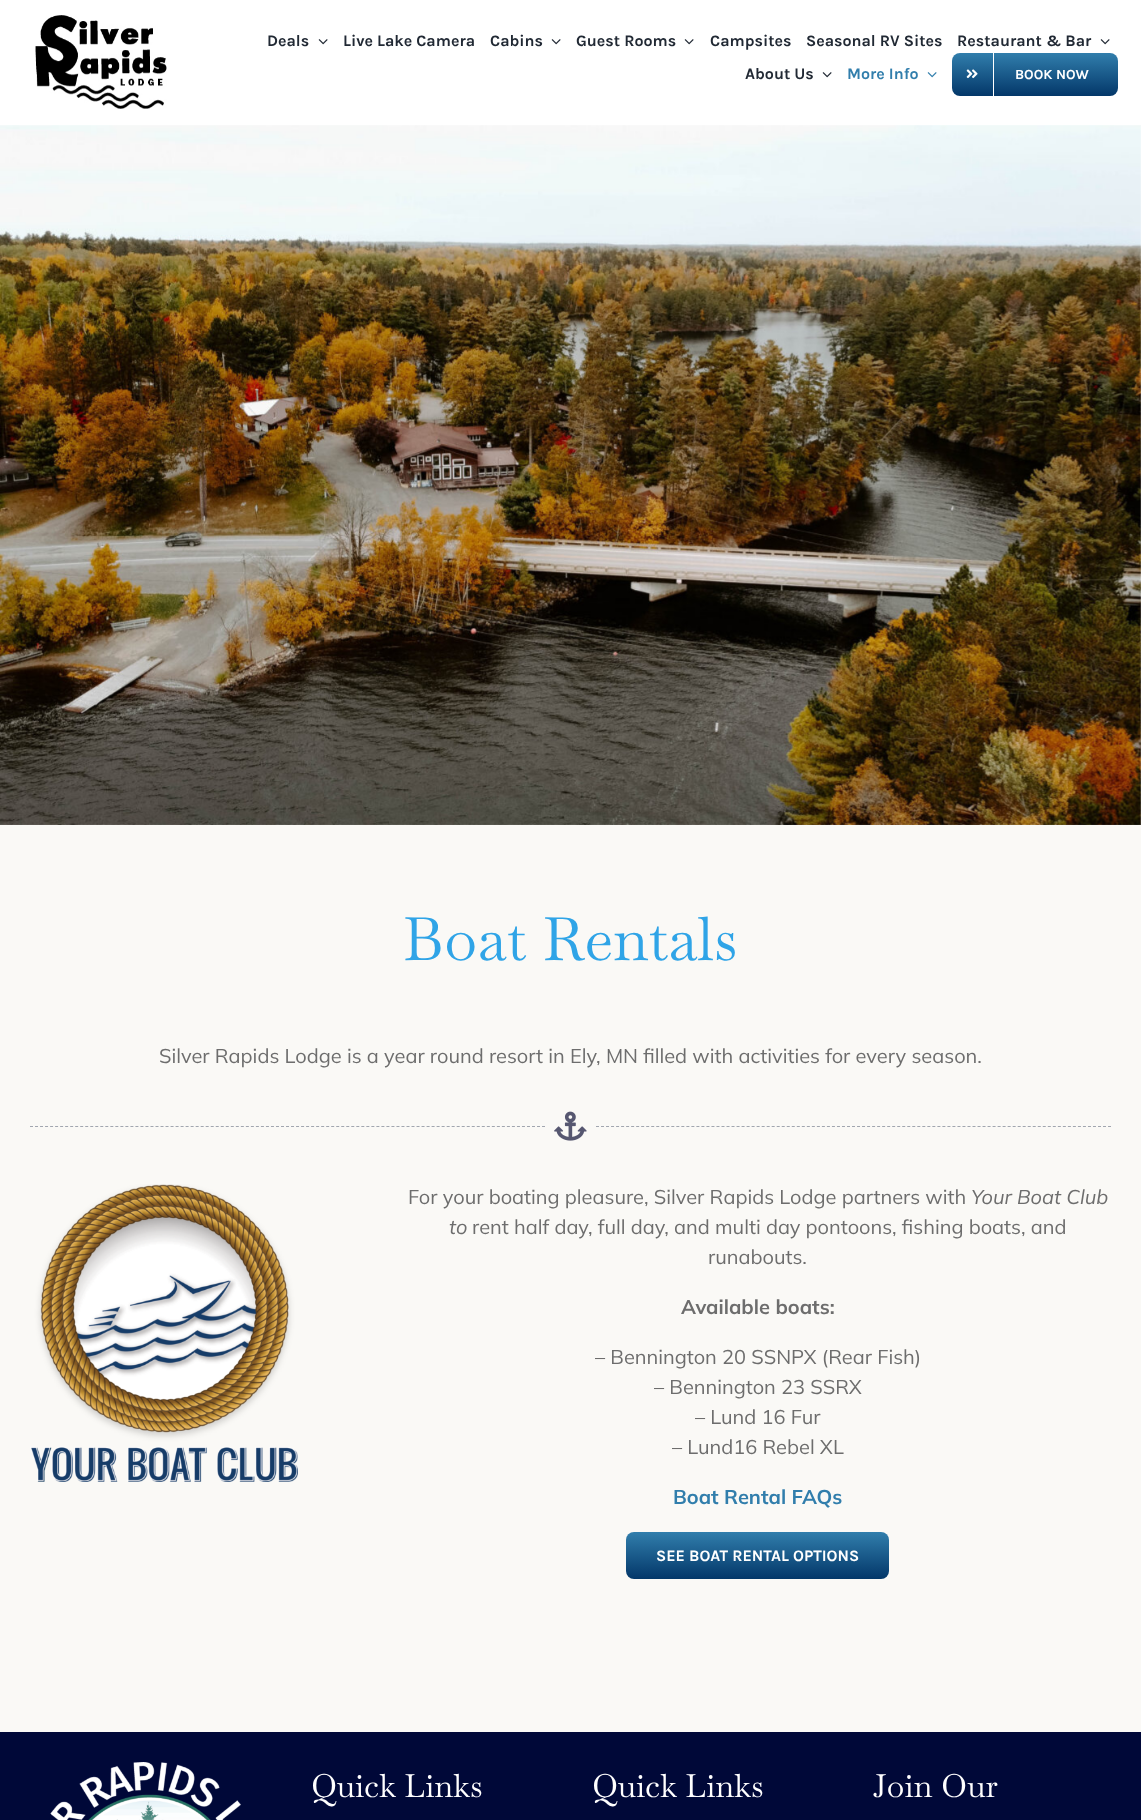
<svg xmlns="http://www.w3.org/2000/svg" width="1141" height="1820" viewBox="0 0 1141 1820">
  <defs>
    <linearGradient id="g1" gradientUnits="userSpaceOnUse" x1="1035" y1="53" x2="1035" y2="96"><stop offset="0" stop-color="rgb(49,126,172)"/><stop offset="1" stop-color="rgb(3,55,105)"/></linearGradient>
    <linearGradient id="g2" gradientUnits="userSpaceOnUse" x1="758" y1="1532" x2="758" y2="1579"><stop offset="0" stop-color="rgb(49,126,172)"/><stop offset="1" stop-color="rgb(3,55,105)"/></linearGradient>
  </defs>
  <rect width="100%" height="100%" fill="rgb(255,255,255)"/>
  <image x="35" y="15" width="132" height="94" href="pic1.png"/>
  <text x="267" y="46" font-family="Karla" font-size="16" font-weight="bold" fill="rgb(33,41,52)">Deals</text>
  <image x="318" y="39" width="10" height="6" href="pic2.png"/>
  <g font-family="Karla" font-size="16" font-weight="bold" fill="rgb(33,41,52)">
    <text x="343" y="46">Live Lake Camera</text>
    <text x="490" y="46">Cabins</text>
  </g>
  <image x="551" y="39" width="10" height="6" href="pic2.png"/>
  <text x="576" y="46" font-family="Karla" font-size="16" font-weight="bold" fill="rgb(33,41,52)">Guest Rooms</text>
  <image x="684" y="39" width="10" height="6" href="pic2.png"/>
  <g font-family="Karla" font-size="16" font-weight="bold" fill="rgb(33,41,52)">
    <text x="710" y="46">Campsites</text>
    <text x="806" y="46">Seasonal RV Sites</text>
    <text x="957" y="46">Restaurant &amp; Bar</text>
  </g>
  <image x="1100" y="39" width="10" height="6" href="pic2.png"/>
  <text x="745" y="79" font-family="Karla" font-size="16" font-weight="bold" fill="rgb(33,41,52)">About Us</text>
  <image x="822" y="72" width="10" height="6" href="pic2.png"/>
  <text x="847" y="79" font-family="Karla" font-size="16" font-weight="bold" fill="rgb(49,126,172)">More Info</text>
  <image x="927" y="72" width="10" height="6" href="pic3.png"/>
  <rect x="952" y="53" width="166" height="43" rx="8" fill="url(#g1)"/>
  <rect x="993" y="53" width="1" height="43" fill="rgb(255,255,255)"/>
  <image x="966" y="69" width="12" height="10" href="pic4.png"/>
  <text x="1015" y="79" font-family="Karla" font-size="14" font-weight="bold" fill="rgb(255,255,255)">BOOK NOW</text>
  <image x="0" y="125" width="1141" height="700" href="pic5.png"/>
  <rect x="0" y="825" width="1141" height="907" fill="rgb(250,249,246)"/>
  <text x="403" y="960" font-family="Baskervville" font-size="60" fill="rgb(47,164,231)">Boat Rentals</text>
  <text x="159" y="1063" font-family="Mulish" font-size="20" fill="rgb(109,109,109)">Silver Rapids Lodge is a year round resort in Ely, MN filled with activities for every season.</text>
  <path d="M30 1126.5H545" fill="none" stroke="rgb(161,166,175)" stroke-dasharray="3 2.02"/>
  <image x="554" y="1111" width="33" height="30" href="pic6.png"/>
  <path d="M596 1126.5H1111" fill="none" stroke="rgb(161,166,175)" stroke-dasharray="3 2.02"/>
  <image x="30" y="1184" width="268" height="298" href="pic7.png"/>
  <text x="408" y="1204" font-family="Mulish" font-size="20" fill="rgb(109,109,109)">For your boating pleasure, Silver Rapids Lodge partners with</text>
  <g font-family="Mulish" font-size="20" font-style="italic" fill="rgb(109,109,109)">
    <text x="971" y="1204">Your Boat Club</text>
    <text x="449" y="1234">to</text>
  </g>
  <g font-family="Mulish" font-size="20" fill="rgb(109,109,109)">
    <text x="472" y="1234">rent half day, full day, and multi day pontoons, fishing boats, and</text>
    <text x="708" y="1264">runabouts.</text>
  </g>
  <text x="681" y="1314" font-family="Mulish" font-size="20" font-weight="bold" fill="rgb(109,109,109)">Available boats:</text>
  <g font-family="Mulish" font-size="20" fill="rgb(109,109,109)">
    <text x="595" y="1364">– Bennington 20 SSNPX (Rear Fish)</text>
    <text x="654" y="1394">– Bennington 23 SSRX</text>
    <text x="695" y="1424">– Lund 16 Fur</text>
    <text x="672" y="1454">– Lund16 Rebel XL</text>
  </g>
  <text x="673" y="1504" font-family="Mulish" font-size="20" font-weight="bold" fill="rgb(49,126,172)">Boat Rental FAQs</text>
  <rect x="626" y="1532" width="263" height="47" rx="8" fill="url(#g2)"/>
  <text x="656" y="1561" font-family="Karla" font-size="16" font-weight="bold" fill="rgb(255,255,255)">SEE BOAT RENTAL OPTIONS</text>
  <rect x="0" y="1732" width="1141" height="88" fill="rgb(0,8,56)"/>
  <image x="50" y="1762" width="191" height="58" href="pic8.png"/>
  <g font-family="Baskervville" font-size="32" fill="rgb(255,255,255)">
    <text x="311" y="1797">Quick Links</text>
    <text x="592" y="1797">Quick Links</text>
    <text x="873" y="1797">Join Our</text>
  </g>
</svg>
